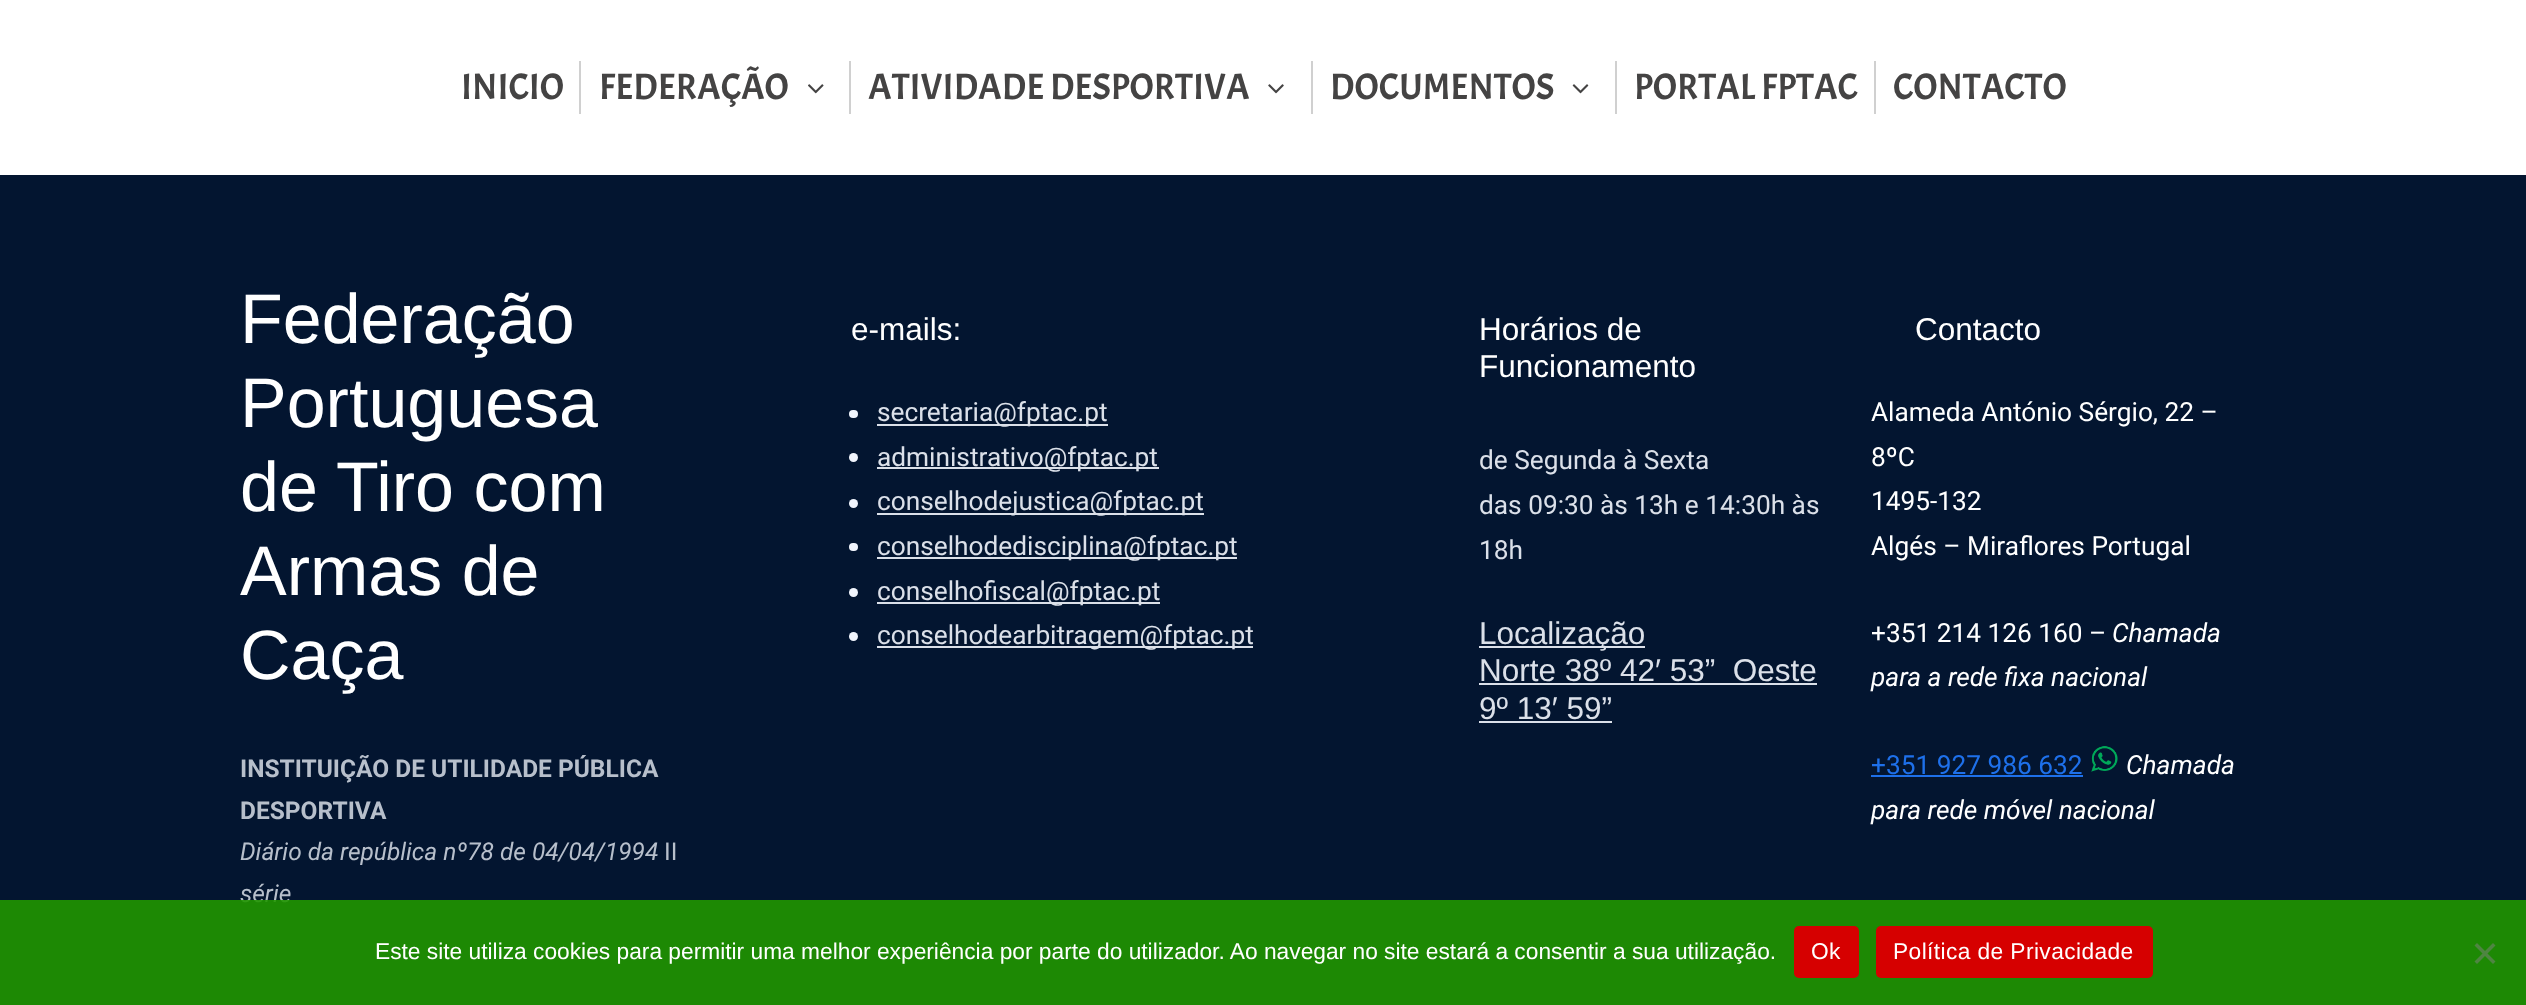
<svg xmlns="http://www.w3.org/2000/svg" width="2526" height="1005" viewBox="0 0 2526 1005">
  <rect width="100%" height="100%" fill="rgb(3,21,48)"/>
  <rect x="0" y="0" width="2526" height="175" fill="rgb(255,255,255)"/>
  <text x="461" y="99" font-family="Acme" font-size="36.75" fill="rgb(68,67,67)">INICIO</text>
  <rect x="579" y="61" width="2" height="53" fill="rgb(208,208,208)"/>
  <text x="599" y="99" font-family="Acme" font-size="36.75" fill="rgb(68,67,67)">FEDERAÇÃO</text>
  <image x="808" y="84" width="16" height="10" href="pic1.png"/>
  <rect x="849" y="61" width="2" height="53" fill="rgb(208,208,208)"/>
  <text x="868" y="99" font-family="Acme" font-size="36.75" fill="rgb(68,67,67)">ATIVIDADE DESPORTIVA</text>
  <image x="1268" y="84" width="16" height="10" href="pic2.png"/>
  <rect x="1311" y="61" width="2" height="53" fill="rgb(208,208,208)"/>
  <text x="1330" y="99" font-family="Acme" font-size="36.75" fill="rgb(68,67,67)">DOCUMENTOS</text>
  <image x="1572" y="84" width="17" height="10" href="pic3.png"/>
  <rect x="1615" y="61" width="2" height="53" fill="rgb(208,208,208)"/>
  <text x="1634" y="99" font-family="Acme" font-size="36.75" fill="rgb(68,67,67)">PORTAL FPTAC</text>
  <rect x="1874" y="61" width="2" height="53" fill="rgb(208,208,208)"/>
  <text x="1893" y="99" font-family="Acme" font-size="36.75" fill="rgb(68,67,67)">CONTACTO</text>
  <g font-family="Liberation Sans" font-size="70" fill="rgb(255,255,255)">
    <text>
      <tspan x="240" y="343">Federação</tspan>
      <tspan x="240" y="427">Portuguesa</tspan>
      <tspan x="240" y="511">de Tiro com</tspan>
      <tspan x="240" y="595">Armas de</tspan>
      <tspan x="240" y="679">Caça</tspan>
    </text>
  </g>
  <g font-family="Roboto" font-size="24.5" font-weight="bold" fill="rgb(183,191,203)">
    <text>
      <tspan x="240" y="777">INSTITUIÇÃO DE UTILIDADE PÚBLICA</tspan>
      <tspan x="240" y="819">DESPORTIVA</tspan>
    </text>
  </g>
  <text x="240" y="860" font-family="Roboto" font-size="24.5" font-style="italic" fill="rgb(183,191,203)">Diário da república nº78 de 04/04/1994</text>
  <text x="664" y="860" font-family="Roboto" font-size="24.5" fill="rgb(183,191,203)">II</text>
  <text x="240" y="902" font-family="Roboto" font-size="24.5" font-style="italic" fill="rgb(183,191,203)">série</text>
  <text x="851" y="340" font-family="Liberation Sans" font-size="31.5" fill="rgb(255,255,255)">e-mails:</text>
  <rect x="849" y="410" width="9" height="8" rx="4" fill="rgb(241,245,253)"/>
  <rect x="877" y="424" width="231" height="2" fill="rgb(219,224,233)"/>
  <text x="877" y="421" font-family="Roboto" font-size="26.25" fill="rgb(219,224,233)">secretaria@fptac.pt</text>
  <circle cx="853.5" cy="457.5" r="4.5" fill="rgb(241,245,253)"/>
  <rect x="877" y="467" width="282" height="2" fill="rgb(219,224,233)"/>
  <text x="877" y="466" font-family="Roboto" font-size="26.25" fill="rgb(219,224,233)">administrativo@fptac.pt</text>
  <circle cx="853.5" cy="503.5" r="4.5" fill="rgb(241,245,253)"/>
  <rect x="877" y="513" width="327" height="2" fill="rgb(219,224,233)"/>
  <text x="877" y="510" font-family="Roboto" font-size="26.25" fill="rgb(219,224,233)">conselhodejustica@fptac.pt</text>
  <rect x="849" y="543" width="9" height="8" rx="4" fill="rgb(241,245,253)"/>
  <rect x="877" y="557" width="360" height="2" fill="rgb(219,224,233)"/>
  <text x="877" y="555" font-family="Roboto" font-size="26.25" fill="rgb(219,224,233)">conselhodedisciplina@fptac.pt</text>
  <circle cx="853.5" cy="592.5" r="4.5" fill="rgb(241,245,253)"/>
  <rect x="877" y="602" width="283" height="2" fill="rgb(219,224,233)"/>
  <text x="877" y="600" font-family="Roboto" font-size="26.25" fill="rgb(219,224,233)">conselhofiscal@fptac.pt</text>
  <circle cx="853.5" cy="636.5" r="4.5" fill="rgb(241,245,253)"/>
  <rect x="877" y="646" width="376" height="2" fill="rgb(219,224,233)"/>
  <text x="877" y="644" font-family="Roboto" font-size="26.25" fill="rgb(219,224,233)">conselhodearbitragem@fptac.pt</text>
  <g font-family="Liberation Sans" font-size="31.5" fill="rgb(255,255,255)">
    <text>
      <tspan x="1479" y="340">Horários de</tspan>
      <tspan x="1479" y="377">Funcionamento</tspan>
    </text>
  </g>
  <g font-family="Roboto" font-size="26.25" fill="rgb(219,224,233)">
    <text>
      <tspan x="1479" y="469">de Segunda à Sexta</tspan>
      <tspan x="1479" y="514">das 09:30 às 13h e 14:30h às</tspan>
      <tspan x="1479" y="559">18h</tspan>
    </text>
  </g>
  <rect x="1479" y="646" width="166" height="2" fill="rgb(219,224,233)"/>
  <g font-family="Liberation Sans" font-size="31.5" fill="rgb(219,224,233)">
    <text xml:space="preserve"><tspan x="1479" y="644">Localização</tspan><tspan x="1479" y="681">Norte 38º 42′ 53”  Oeste</tspan></text>
  </g>
  <rect x="1479" y="683" width="338" height="2" fill="rgb(219,224,233)"/>
  <text x="1479" y="719" font-family="Liberation Sans" font-size="31.5" fill="rgb(219,224,233)">9º 13′ 59”</text>
  <rect x="1479" y="721" width="133" height="2" fill="rgb(219,224,233)"/>
  <text x="1915" y="340" font-family="Liberation Sans" font-size="31.5" fill="rgb(255,255,255)">Contacto</text>
  <g font-family="Roboto" font-size="26.25" fill="rgb(255,255,255)">
    <text>
      <tspan x="1871" y="421">Alameda António Sérgio, 22 –</tspan>
      <tspan x="1871" y="466">8ºC</tspan>
      <tspan x="1871" y="510">1495-132</tspan>
      <tspan x="1871" y="555">Algés – Miraflores Portugal</tspan>
    </text>
    <text x="1871" y="642">+351 214 126 160 –</text>
  </g>
  <g font-family="Roboto" font-size="26.25" font-style="italic" fill="rgb(255,255,255)">
    <text x="2112" y="642">Chamada</text>
    <text x="1871" y="686">para a rede fixa nacional</text>
  </g>
  <text x="1871" y="774" font-family="Roboto" font-size="26.25" fill="rgb(30,112,234)">+351 927 986 632</text>
  <rect x="1871" y="775" width="212" height="2" fill="rgb(30,112,234)"/>
  <image x="2091" y="746" width="27" height="26" href="pic4.png"/>
  <g font-family="Roboto" font-size="26.25" font-style="italic" fill="rgb(255,255,255)">
    <text x="2126" y="774">Chamada</text>
    <text x="1871" y="819">para rede móvel nacional</text>
  </g>
  <rect x="0" y="900" width="2526" height="105" fill="rgba(32,150,0,0.9)"/>
  <text x="375" y="959" font-family="Liberation Sans" font-size="22.75" fill="rgb(255,255,255)">Este site utiliza cookies para permitir uma melhor experiência por parte do utilizador. Ao navegar no site estará a consentir a sua utilização.</text>
  <rect x="1794" y="926" width="65" height="52" rx="5" fill="rgb(214,0,0)"/>
  <text x="1811" y="959" font-family="Liberation Sans" font-size="22.75" letter-spacing="0.4" fill="rgb(255,255,255)">Ok</text>
  <rect x="1876" y="926" width="277" height="52" rx="5" fill="rgb(214,0,0)"/>
  <text x="1893" y="959" font-family="Liberation Sans" font-size="22.75" letter-spacing="0.4" fill="rgb(255,255,255)">Política de Privacidade</text>
  <path d="M2493 943L2495.5 945.5L2477 964L2474.5 961.5Z" fill="rgb(79,133,66)"/>
  <path d="M2474.5 945.5L2477 943L2495.5 961.5L2493 964Z" fill="rgb(79,133,66)"/>
</svg>
